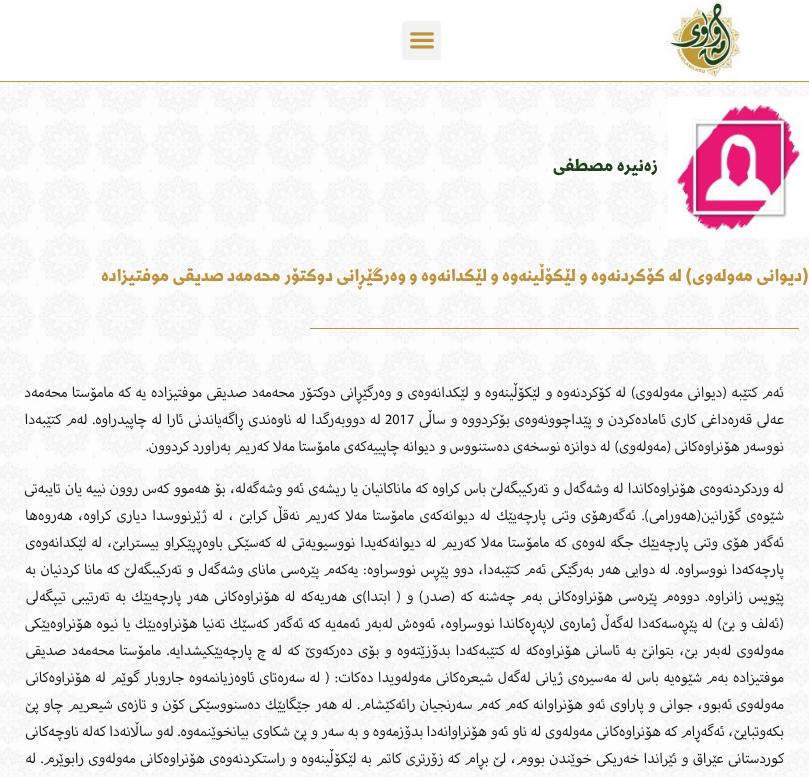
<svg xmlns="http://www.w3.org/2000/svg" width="809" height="777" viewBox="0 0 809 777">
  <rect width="100%" height="100%" fill="rgb(255,255,255)"/>
  <image x="0" y="82" width="809" height="695" href="pic1.png"/>
  <rect x="0" y="81" width="809" height="1" fill="rgb(191,145,59)"/>
  <image x="665" y="0" width="76" height="78" href="pic2.png"/>
  <rect x="402" y="21" width="39" height="39" rx="3" fill="rgb(242,242,242)"/>
  <image x="410" y="32" width="24" height="17" href="pic3.png"/>
  <image x="668" y="97" width="141" height="141" href="pic4.png"/>
  <text x="658" y="171" font-family="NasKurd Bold" font-size="20" font-weight="bold" direction="rtl" fill="rgb(29,64,24)">زه‌نیره‌ مصطفی</text>
  <text x="809" y="281" font-family="NasKurd Bold" font-size="20" font-weight="bold" direction="rtl" fill="rgb(191,145,59)">(دیوانی مه‌وله‌وی) له‌ كۆكردنه‌وه‌ و لێكۆڵینه‌وه‌ و لێكدانه‌وه‌ و وه‌رگێڕانی دوكتۆر محه‌مه‌د صدیقی موفتیزاده‌</text>
  <rect x="310" y="328" width="489" height="1" fill="rgb(191,145,59)"/>
  <g font-family="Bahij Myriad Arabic" font-size="18" direction="rtl" fill="rgb(15,15,15)">
    <text>
      <tspan x="784" y="397" word-spacing="1">ئه‌م كتێبه‌ (دیوانی مه‌وله‌وی) له‌ كۆكردنه‌وه‌ و لێكۆڵینه‌وه‌ و لێكدانه‌وه‌ی و وه‌رگێڕانی دوكتۆر محه‌مه‌د صدیقی موفتیزاده‌ یه‌ كه‌ مامۆستا محه‌مه‌د</tspan>
      <tspan x="784" y="424" word-spacing="1">عه‌لی قه‌ره‌داغی كاری ئاماده‌كردن و پێداچوونه‌وه‌ی بۆكردووه‌ و ساڵی</tspan>
    </text>
  </g>
  <text x="385" y="424" font-family="Bahij Myriad Arabic" font-size="18" fill="rgb(15,15,15)">2017</text>
  <g font-family="Bahij Myriad Arabic" font-size="18" direction="rtl" fill="rgb(15,15,15)">
    <text x="381" y="424" word-spacing="1">له‌ دووبه‌رگدا له‌ ناوه‌ندی ڕاگه‌یاندنی ئارا له‌ چاپیدراوه‌‌. له‌م كتێبه‌دا</text>
    <text x="784" y="451">نووسه‌ر هۆنراوه‌كانی (مه‌وله‌وی) له‌ دوانزه‌ نوسخه‌ی ده‌ستنووس و دیوانه‌ چاپییه‌كه‌ی مامۆستا مه‌لا كه‌ریم به‌راورد كردوون.</text>
    <text>
      <tspan x="784" y="493" word-spacing="0.5">له‌ وردكردنه‌وه‌ی هۆنراوه‌كاندا له‌ وشه‌گه‌ل و ته‌ركیبگه‌لێ باس كراوه‌ كه‌ ماناكانیان یا ریشه‌ی ئه‌و وشه‌گه‌له‌، بۆ هه‌موو كه‌س روون نییه‌ یان تایبه‌تی</tspan>
      <tspan x="784" y="520" word-spacing="1.75">شێوه‌ی گۆرانین(هه‌ورامی). ئه‌گه‌رهۆی وتنی پارچه‌یێك له‌ دیوانه‌كه‌ی مامۆستا مه‌لا كه‌ریم نه‌قڵ كرابێ ، له‌ ژێرنووسدا دیاری كراوه‌، هه‌روه‌ها</tspan>
      <tspan x="784" y="547" word-spacing="1.25">ئه‌گه‌ر هۆی وتنی پارچه‌یێك جگه‌ له‌وه‌ی كه‌ مامۆستا مه‌لا كه‌ریم له‌ دیوانه‌كه‌یدا نووسیویه‌تی له‌ كه‌سێكی باوه‌ڕپێكراو بیسترابێ، له‌ لێكدانه‌وه‌ی</tspan>
      <tspan x="784" y="574" word-spacing="0.9">پارچه‌كه‌دا نووسراوه‌‌. له‌ دوایی هه‌ر به‌رگێكی ئه‌م كتێبه‌دا، دوو پێڕس نووسراوه‌: یه‌كه‌م پێره‌سی مانای وشه‌گه‌ل و ته‌ركیبگه‌لێ كه‌ مانا كردنیان به‌</tspan>
      <tspan x="784" y="601" word-spacing="1.8">پێویس زانراوه‌. دووه‌م پێره‌سی هۆنراوه‌كانی به‌م چه‌شنه‌ كه‌ (صدر) و ( ابتدا)ی هه‌ریه‌كه‌ له‌ هۆنراوه‌كانی هه‌ر پارچه‌یێك به‌ ته‌رتیبی تیپگه‌لی</tspan>
      <tspan x="784" y="628" word-spacing="0.9">(ئه‌لف و بێ) له‌ پێڕه‌سه‌كه‌دا له‌گه‌ڵ ژماره‌ی لاپه‌ڕه‌كاندا نووسراوه‌، ئه‌وه‌ش له‌به‌ر ئه‌مه‌یه‌ كه‌ ئه‌گه‌ر كه‌سێك ته‌نیا هۆنراوه‌یێك یا نیوه‌ هۆنراوه‌یێكی</tspan>
      <tspan x="784" y="655" word-spacing="1.6">مه‌وله‌وی له‌به‌ر بێ، بتوانێ به‌ ئاسانی هۆنراوه‌كه‌ له‌ كتێبه‌كه‌دا بدۆزێته‌وه‌ و بۆی ده‌ركه‌وێ كه‌ له‌ چ پارچه‌یێكیشدایه‌. مامۆستا محه‌مه‌د صدیقی</tspan>
      <tspan x="784" y="682" word-spacing="1">موفتیزاده‌ به‌م شێوه‌یه‌ باس له‌ مه‌سیره‌ی ژیانی له‌گه‌ل شیعره‌كانی مه‌وله‌ویدا ده‌كات: ( له‌ سه‌ره‌تای ئاوه‌زیانمه‌وه‌ جاروبار گوێم له‌ هۆنراوه‌كانی</tspan>
      <tspan x="784" y="709" word-spacing="0.9">مه‌وله‌وی ئه‌بوو، جوانی و پاراوی ئه‌و هۆنراوانه‌ كه‌م كه‌م سه‌رنجیان رائه‌كێشام. له‌ هه‌ر جێگایێك ده‌سنووسێكی كۆن و تازه‌ی شیعریم چاو پێ</tspan>
      <tspan x="784" y="736">بكه‌وتبایێ، ئه‌گه‌ڕام كه‌ هۆنراوه‌كانی مه‌وله‌وی له‌ ناو ئه‌و هۆنراوانه‌دا بدۆزمه‌وه‌ و به‌ سه‌ر و پێ شكاوی بیانخوێنمه‌وه‌. له‌و ساڵانه‌دا كه‌له‌ ناوچه‌كانی</tspan>
      <tspan x="784" y="763" word-spacing="0.75">كوردستانی عێراق و ئێراندا خه‌ریكی خوێندن بووم، لێ بڕام كه‌ زۆرتری كاتم به‌ لێكۆڵینه‌وه‌ و راستكردنه‌وه‌ی هۆنراوه‌كانی مه‌وله‌وی رابوێرم. له‌</tspan>
    </text>
  </g>
</svg>
